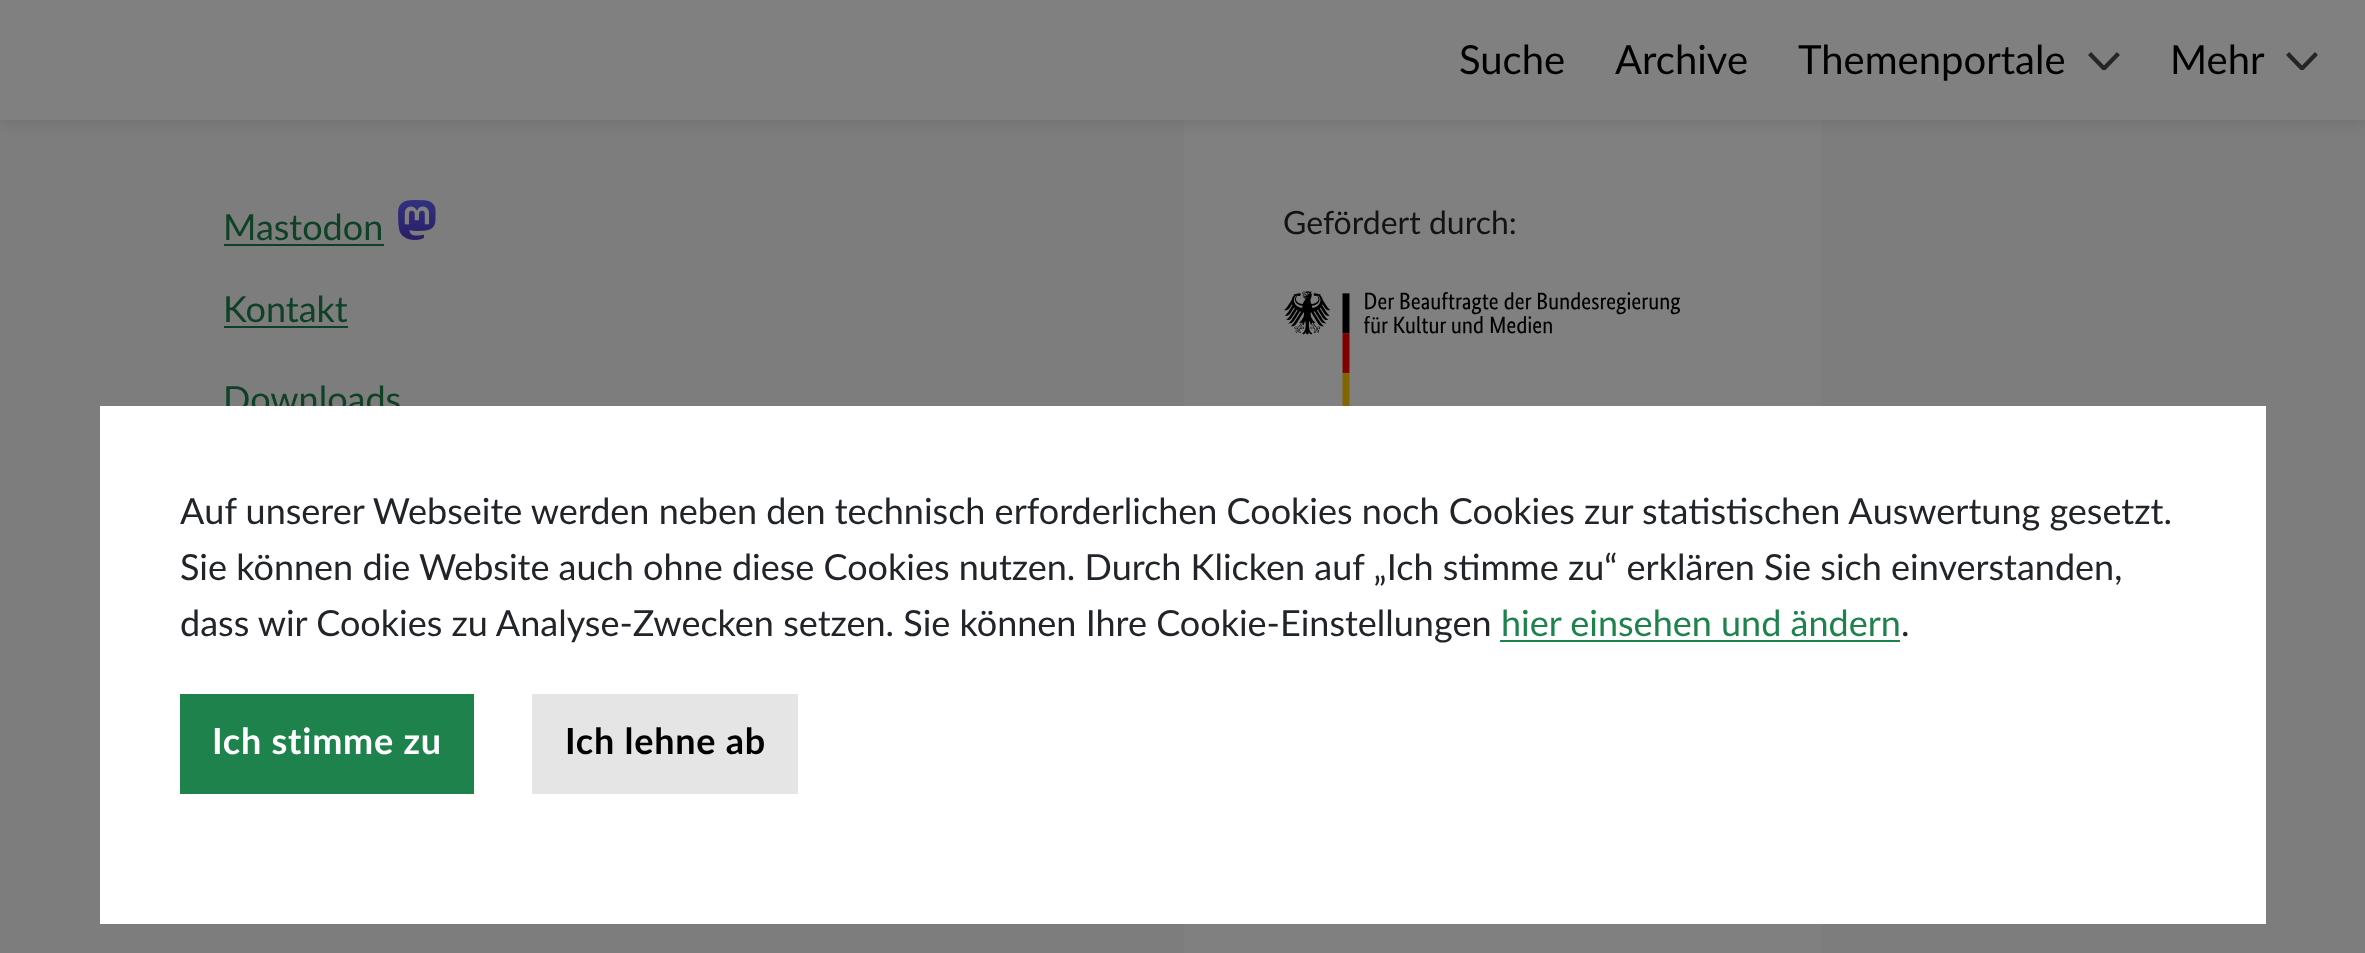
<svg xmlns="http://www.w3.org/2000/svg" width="2365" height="953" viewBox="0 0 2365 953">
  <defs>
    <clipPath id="clip1"><rect x="2088" y="52" width="32" height="18"/></clipPath>
    <clipPath id="clip2"><rect x="2286" y="52" width="32" height="18"/></clipPath>
  </defs>
  <rect width="100%" height="100%" fill="rgb(125,125,125)"/>
  <rect x="1184" y="120" width="638" height="833" fill="rgb(128,128,128)"/>
  <rect x="0" y="0" width="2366" height="120" fill="rgba(0,0,0,0.14)" filter="blur(9px)"/>
  <rect x="0" y="0" width="2365" height="120" fill="rgb(128,128,128)"/>
  <g font-family="Lato" font-size="40" fill="rgb(0,0,0)">
    <text x="1459" y="74">Suche</text>
    <text x="1615" y="74">Archive</text>
    <text x="1798" y="74">Themenportale</text>
  </g>
  <g clip-path="url(#clip1)">
    <path d="M2091 55L2104 68.5L2117 55" fill="none" stroke="rgb(37,37,37)" stroke-width="4.2" stroke-linecap="square"/>
  </g>
  <text x="2170" y="74" font-family="Lato" font-size="40" fill="rgb(0,0,0)">Mehr</text>
  <g clip-path="url(#clip2)">
    <path d="M2289 55L2302 68.5L2315 55" fill="none" stroke="rgb(37,37,37)" stroke-width="4.2" stroke-linecap="square"/>
  </g>
  <text x="223" y="240" font-family="Lato" font-size="36" fill="rgb(15,65,38)">Mastodon</text>
  <rect x="224" y="244" width="160" height="2" fill="rgb(15,65,38)"/>
  <image x="398" y="200" width="38" height="40" href="pic1.png"/>
  <text x="223" y="322" font-family="Lato" font-size="36" fill="rgb(15,65,38)">Kontakt</text>
  <rect x="224" y="326" width="124" height="2" fill="rgb(15,65,38)"/>
  <text x="223" y="412" font-family="Lato" font-size="36" fill="rgb(15,65,38)">Downloads</text>
  <text x="1283" y="234" font-family="Lato" font-size="32" fill="rgb(17,19,21)">Gefördert durch:</text>
  <image x="1284" y="291" width="397" height="115" href="pic2.png"/>
  <rect x="100" y="406" width="2166" height="518" fill="rgb(255,255,255)"/>
  <g font-family="Lato" font-size="36" fill="rgb(33,37,41)">
    <text>
      <tspan x="180" y="524">Auf unserer Webseite werden neben den technisch erforderlichen Cookies noch Cookies zur statistischen Auswertung gesetzt.</tspan>
      <tspan x="180" y="580">Sie können die Website auch ohne diese Cookies nutzen. Durch Klicken auf „Ich stimme zu“ erklären Sie sich einverstanden,</tspan>
      <tspan x="180" y="636">dass wir Cookies zu Analyse-Zwecken setzen. Sie können Ihre Cookie-Einstellungen</tspan>
    </text>
  </g>
  <text x="1501" y="636" font-family="Lato" font-size="36" fill="rgb(30,130,76)">hier einsehen und ändern</text>
  <rect x="1500" y="640" width="400" height="2" fill="rgb(30,130,76)"/>
  <text x="1901" y="636" font-family="Lato" font-size="36" fill="rgb(33,37,41)">.</text>
  <rect x="180" y="694" width="294" height="100" fill="rgb(30,130,76)"/>
  <text x="212" y="754" font-family="Lato" font-size="36" font-weight="bold" letter-spacing="0.75" fill="rgb(255,255,255)">Ich stimme zu</text>
  <rect x="532" y="694" width="266" height="100" fill="rgb(229,229,229)"/>
  <text x="565" y="754" font-family="Lato" font-size="36" font-weight="bold" letter-spacing="0.75" fill="rgb(0,0,0)">Ich lehne ab</text>
</svg>
